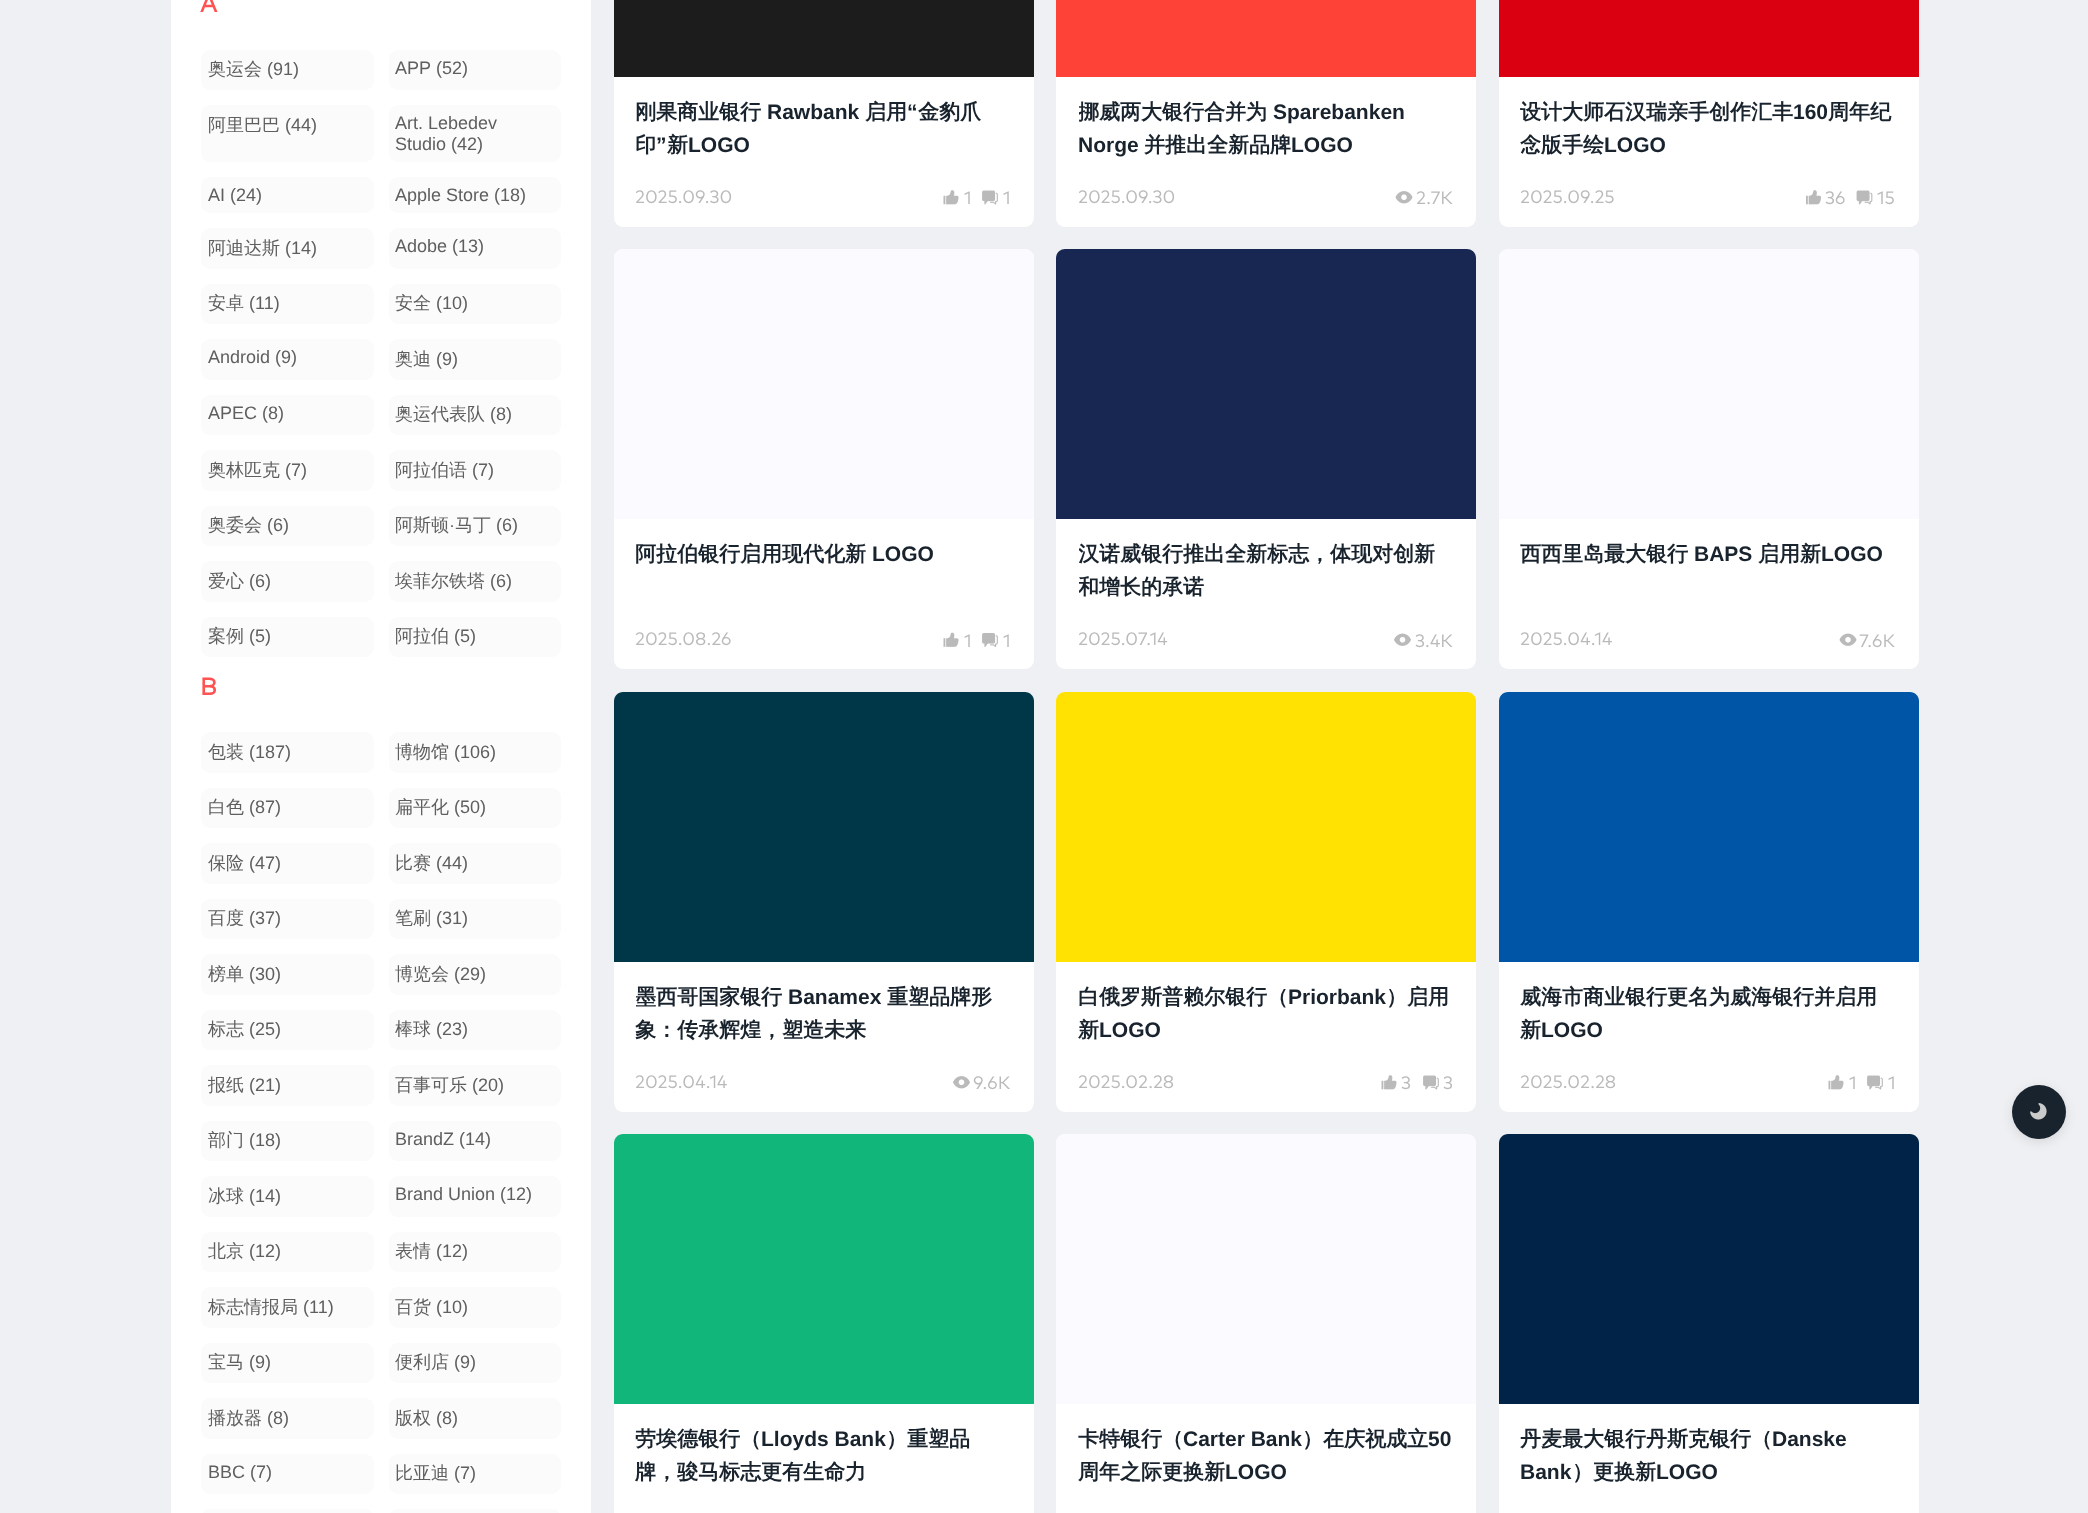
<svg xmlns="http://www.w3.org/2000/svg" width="2088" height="1513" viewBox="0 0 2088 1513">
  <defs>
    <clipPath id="clip1"><rect x="1079" y="95" width="375" height="67"/></clipPath>
    <clipPath id="clip2"><rect x="1079" y="537" width="375" height="68"/></clipPath>
    <clipPath id="clip3"><rect x="636" y="980" width="375" height="67"/></clipPath>
  </defs>
  <rect width="100%" height="100%" fill="rgb(238,240,244)"/>
  <rect x="171" y="0" width="420" height="1513" fill="rgb(255,255,255)"/>
  <text x="200" y="12" font-family="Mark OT" font-size="24" font-weight="bold" fill="rgb(255,82,82)">A</text>
  <rect x="201" y="50" width="173" height="40" rx="9" fill="rgb(251,251,251)"/>
  <text x="208" y="75" font-family="WenQuanYi Zen Hei" font-size="18" font-weight="500" fill="rgb(95,95,95)">奥运会</text>
  <text x="267" y="75" font-family="Liberation Sans" font-size="18" fill="rgb(95,95,95)">(91)</text>
  <rect x="389" y="50" width="172" height="40" rx="9" fill="rgb(251,251,251)"/>
  <g font-family="Liberation Sans" font-size="18" fill="rgb(95,95,95)">
    <text x="395" y="74">APP</text>
    <text x="436" y="74">(52)</text>
  </g>
  <rect x="201" y="105" width="173" height="57" rx="9" fill="rgb(251,251,251)"/>
  <text x="208" y="131" font-family="WenQuanYi Zen Hei" font-size="18" font-weight="500" fill="rgb(95,95,95)">阿里巴巴</text>
  <text x="285" y="131" font-family="Liberation Sans" font-size="18" fill="rgb(95,95,95)">(44)</text>
  <rect x="389" y="105" width="172" height="57" rx="9" fill="rgb(251,251,251)"/>
  <g font-family="Liberation Sans" font-size="18" fill="rgb(95,95,95)">
    <text>
      <tspan x="395" y="129">Art. Lebedev</tspan>
      <tspan x="395" y="150">Studio (42)</tspan>
    </text>
  </g>
  <rect x="201" y="177" width="173" height="36" rx="9" fill="rgb(251,251,251)"/>
  <text x="208" y="201" font-family="Liberation Sans" font-size="18" fill="rgb(95,95,95)">AI (24)</text>
  <rect x="389" y="177" width="172" height="36" rx="9" fill="rgb(251,251,251)"/>
  <text x="395" y="201" font-family="Liberation Sans" font-size="18" fill="rgb(95,95,95)">Apple Store (18)</text>
  <rect x="201" y="228" width="173" height="41" rx="9" fill="rgb(251,251,251)"/>
  <text x="208" y="254" font-family="WenQuanYi Zen Hei" font-size="18" font-weight="500" fill="rgb(95,95,95)">阿迪达斯</text>
  <text x="285" y="254" font-family="Liberation Sans" font-size="18" fill="rgb(95,95,95)">(14)</text>
  <rect x="389" y="228" width="172" height="41" rx="9" fill="rgb(251,251,251)"/>
  <text x="395" y="252" font-family="Liberation Sans" font-size="18" fill="rgb(95,95,95)">Adobe (13)</text>
  <rect x="201" y="284" width="173" height="40" rx="9" fill="rgb(251,251,251)"/>
  <text x="208" y="309" font-family="WenQuanYi Zen Hei" font-size="18" font-weight="500" fill="rgb(95,95,95)">安卓</text>
  <text x="249" y="309" font-family="Liberation Sans" font-size="18" fill="rgb(95,95,95)">(11)</text>
  <rect x="389" y="284" width="172" height="40" rx="9" fill="rgb(251,251,251)"/>
  <text x="395" y="309" font-family="WenQuanYi Zen Hei" font-size="18" font-weight="500" fill="rgb(95,95,95)">安全</text>
  <text x="436" y="309" font-family="Liberation Sans" font-size="18" fill="rgb(95,95,95)">(10)</text>
  <rect x="201" y="339" width="173" height="41" rx="9" fill="rgb(251,251,251)"/>
  <text x="208" y="363" font-family="Liberation Sans" font-size="18" fill="rgb(95,95,95)">Android (9)</text>
  <rect x="389" y="339" width="172" height="41" rx="9" fill="rgb(251,251,251)"/>
  <text x="395" y="365" font-family="WenQuanYi Zen Hei" font-size="18" font-weight="500" fill="rgb(95,95,95)">奥迪</text>
  <text x="436" y="365" font-family="Liberation Sans" font-size="18" fill="rgb(95,95,95)">(9)</text>
  <rect x="201" y="395" width="173" height="40" rx="9" fill="rgb(251,251,251)"/>
  <text x="208" y="419" font-family="Liberation Sans" font-size="18" fill="rgb(95,95,95)">APEC (8)</text>
  <rect x="389" y="395" width="172" height="40" rx="9" fill="rgb(251,251,251)"/>
  <text x="395" y="420" font-family="WenQuanYi Zen Hei" font-size="18" font-weight="500" fill="rgb(95,95,95)">奥运代表队</text>
  <text x="490" y="420" font-family="Liberation Sans" font-size="18" fill="rgb(95,95,95)">(8)</text>
  <rect x="201" y="450" width="173" height="41" rx="9" fill="rgb(251,251,251)"/>
  <text x="208" y="476" font-family="WenQuanYi Zen Hei" font-size="18" font-weight="500" fill="rgb(95,95,95)">奥林匹克</text>
  <text x="285" y="476" font-family="Liberation Sans" font-size="18" fill="rgb(95,95,95)">(7)</text>
  <rect x="389" y="450" width="172" height="41" rx="9" fill="rgb(251,251,251)"/>
  <text x="395" y="476" font-family="WenQuanYi Zen Hei" font-size="18" font-weight="500" fill="rgb(95,95,95)">阿拉伯语</text>
  <text x="472" y="476" font-family="Liberation Sans" font-size="18" fill="rgb(95,95,95)">(7)</text>
  <rect x="201" y="506" width="173" height="40" rx="9" fill="rgb(251,251,251)"/>
  <text x="208" y="531" font-family="WenQuanYi Zen Hei" font-size="18" font-weight="500" fill="rgb(95,95,95)">奥委会</text>
  <text x="267" y="531" font-family="Liberation Sans" font-size="18" fill="rgb(95,95,95)">(6)</text>
  <rect x="389" y="506" width="172" height="40" rx="9" fill="rgb(251,251,251)"/>
  <text x="395" y="531" font-family="WenQuanYi Zen Hei" font-size="18" font-weight="500" fill="rgb(95,95,95)">阿斯顿</text>
  <text x="449" y="531" font-family="Liberation Sans" font-size="18" fill="rgb(95,95,95)">·</text>
  <text x="455" y="531" font-family="WenQuanYi Zen Hei" font-size="18" font-weight="500" fill="rgb(95,95,95)">马丁</text>
  <text x="496" y="531" font-family="Liberation Sans" font-size="18" fill="rgb(95,95,95)">(6)</text>
  <rect x="201" y="561" width="173" height="41" rx="9" fill="rgb(251,251,251)"/>
  <text x="208" y="587" font-family="WenQuanYi Zen Hei" font-size="18" font-weight="500" fill="rgb(95,95,95)">爱心</text>
  <text x="249" y="587" font-family="Liberation Sans" font-size="18" fill="rgb(95,95,95)">(6)</text>
  <rect x="389" y="561" width="172" height="41" rx="9" fill="rgb(251,251,251)"/>
  <text x="395" y="587" font-family="WenQuanYi Zen Hei" font-size="18" font-weight="500" fill="rgb(95,95,95)">埃菲尔铁塔</text>
  <text x="490" y="587" font-family="Liberation Sans" font-size="18" fill="rgb(95,95,95)">(6)</text>
  <rect x="201" y="617" width="173" height="40" rx="9" fill="rgb(251,251,251)"/>
  <text x="208" y="642" font-family="WenQuanYi Zen Hei" font-size="18" font-weight="500" fill="rgb(95,95,95)">案例</text>
  <text x="249" y="642" font-family="Liberation Sans" font-size="18" fill="rgb(95,95,95)">(5)</text>
  <rect x="389" y="617" width="172" height="40" rx="9" fill="rgb(251,251,251)"/>
  <text x="395" y="642" font-family="WenQuanYi Zen Hei" font-size="18" font-weight="500" fill="rgb(95,95,95)">阿拉伯</text>
  <text x="454" y="642" font-family="Liberation Sans" font-size="18" fill="rgb(95,95,95)">(5)</text>
  <text x="200" y="695" font-family="Mark OT" font-size="24" font-weight="bold" fill="rgb(255,82,82)">B</text>
  <rect x="201" y="732" width="173" height="41" rx="9" fill="rgb(251,251,251)"/>
  <text x="208" y="758" font-family="WenQuanYi Zen Hei" font-size="18" font-weight="500" fill="rgb(95,95,95)">包装</text>
  <text x="249" y="758" font-family="Liberation Sans" font-size="18" fill="rgb(95,95,95)">(187)</text>
  <rect x="389" y="732" width="172" height="41" rx="9" fill="rgb(251,251,251)"/>
  <text x="395" y="758" font-family="WenQuanYi Zen Hei" font-size="18" font-weight="500" fill="rgb(95,95,95)">博物馆</text>
  <text x="454" y="758" font-family="Liberation Sans" font-size="18" fill="rgb(95,95,95)">(106)</text>
  <rect x="201" y="788" width="173" height="40" rx="9" fill="rgb(251,251,251)"/>
  <text x="208" y="813" font-family="WenQuanYi Zen Hei" font-size="18" font-weight="500" fill="rgb(95,95,95)">白色</text>
  <text x="249" y="813" font-family="Liberation Sans" font-size="18" fill="rgb(95,95,95)">(87)</text>
  <rect x="389" y="788" width="172" height="40" rx="9" fill="rgb(251,251,251)"/>
  <text x="395" y="813" font-family="WenQuanYi Zen Hei" font-size="18" font-weight="500" fill="rgb(95,95,95)">扁平化</text>
  <text x="454" y="813" font-family="Liberation Sans" font-size="18" fill="rgb(95,95,95)">(50)</text>
  <rect x="201" y="843" width="173" height="41" rx="9" fill="rgb(251,251,251)"/>
  <text x="208" y="869" font-family="WenQuanYi Zen Hei" font-size="18" font-weight="500" fill="rgb(95,95,95)">保险</text>
  <text x="249" y="869" font-family="Liberation Sans" font-size="18" fill="rgb(95,95,95)">(47)</text>
  <rect x="389" y="843" width="172" height="41" rx="9" fill="rgb(251,251,251)"/>
  <text x="395" y="869" font-family="WenQuanYi Zen Hei" font-size="18" font-weight="500" fill="rgb(95,95,95)">比赛</text>
  <text x="436" y="869" font-family="Liberation Sans" font-size="18" fill="rgb(95,95,95)">(44)</text>
  <rect x="201" y="899" width="173" height="40" rx="9" fill="rgb(251,251,251)"/>
  <text x="208" y="924" font-family="WenQuanYi Zen Hei" font-size="18" font-weight="500" fill="rgb(95,95,95)">百度</text>
  <text x="249" y="924" font-family="Liberation Sans" font-size="18" fill="rgb(95,95,95)">(37)</text>
  <rect x="389" y="899" width="172" height="40" rx="9" fill="rgb(251,251,251)"/>
  <text x="395" y="924" font-family="WenQuanYi Zen Hei" font-size="18" font-weight="500" fill="rgb(95,95,95)">笔刷</text>
  <text x="436" y="924" font-family="Liberation Sans" font-size="18" fill="rgb(95,95,95)">(31)</text>
  <rect x="201" y="954" width="173" height="41" rx="9" fill="rgb(251,251,251)"/>
  <text x="208" y="980" font-family="WenQuanYi Zen Hei" font-size="18" font-weight="500" fill="rgb(95,95,95)">榜单</text>
  <text x="249" y="980" font-family="Liberation Sans" font-size="18" fill="rgb(95,95,95)">(30)</text>
  <rect x="389" y="954" width="172" height="41" rx="9" fill="rgb(251,251,251)"/>
  <text x="395" y="980" font-family="WenQuanYi Zen Hei" font-size="18" font-weight="500" fill="rgb(95,95,95)">博览会</text>
  <text x="454" y="980" font-family="Liberation Sans" font-size="18" fill="rgb(95,95,95)">(29)</text>
  <rect x="201" y="1010" width="173" height="40" rx="9" fill="rgb(251,251,251)"/>
  <text x="208" y="1035" font-family="WenQuanYi Zen Hei" font-size="18" font-weight="500" fill="rgb(95,95,95)">标志</text>
  <text x="249" y="1035" font-family="Liberation Sans" font-size="18" fill="rgb(95,95,95)">(25)</text>
  <rect x="389" y="1010" width="172" height="40" rx="9" fill="rgb(251,251,251)"/>
  <text x="395" y="1035" font-family="WenQuanYi Zen Hei" font-size="18" font-weight="500" fill="rgb(95,95,95)">棒球</text>
  <text x="436" y="1035" font-family="Liberation Sans" font-size="18" fill="rgb(95,95,95)">(23)</text>
  <rect x="201" y="1065" width="173" height="41" rx="9" fill="rgb(251,251,251)"/>
  <text x="208" y="1091" font-family="WenQuanYi Zen Hei" font-size="18" font-weight="500" fill="rgb(95,95,95)">报纸</text>
  <text x="249" y="1091" font-family="Liberation Sans" font-size="18" fill="rgb(95,95,95)">(21)</text>
  <rect x="389" y="1065" width="172" height="41" rx="9" fill="rgb(251,251,251)"/>
  <text x="395" y="1091" font-family="WenQuanYi Zen Hei" font-size="18" font-weight="500" fill="rgb(95,95,95)">百事可乐</text>
  <text x="472" y="1091" font-family="Liberation Sans" font-size="18" fill="rgb(95,95,95)">(20)</text>
  <rect x="201" y="1121" width="173" height="40" rx="9" fill="rgb(251,251,251)"/>
  <text x="208" y="1146" font-family="WenQuanYi Zen Hei" font-size="18" font-weight="500" fill="rgb(95,95,95)">部门</text>
  <text x="249" y="1146" font-family="Liberation Sans" font-size="18" fill="rgb(95,95,95)">(18)</text>
  <rect x="389" y="1121" width="172" height="40" rx="9" fill="rgb(251,251,251)"/>
  <text x="395" y="1145" font-family="Liberation Sans" font-size="18" fill="rgb(95,95,95)">BrandZ (14)</text>
  <rect x="201" y="1176" width="173" height="41" rx="9" fill="rgb(251,251,251)"/>
  <text x="208" y="1202" font-family="WenQuanYi Zen Hei" font-size="18" font-weight="500" fill="rgb(95,95,95)">冰球</text>
  <text x="249" y="1202" font-family="Liberation Sans" font-size="18" fill="rgb(95,95,95)">(14)</text>
  <rect x="389" y="1176" width="172" height="41" rx="9" fill="rgb(251,251,251)"/>
  <text x="395" y="1200" font-family="Liberation Sans" font-size="18" fill="rgb(95,95,95)">Brand Union (12)</text>
  <rect x="201" y="1232" width="173" height="40" rx="9" fill="rgb(251,251,251)"/>
  <text x="208" y="1257" font-family="WenQuanYi Zen Hei" font-size="18" font-weight="500" fill="rgb(95,95,95)">北京</text>
  <text x="249" y="1257" font-family="Liberation Sans" font-size="18" fill="rgb(95,95,95)">(12)</text>
  <rect x="389" y="1232" width="172" height="40" rx="9" fill="rgb(251,251,251)"/>
  <text x="395" y="1257" font-family="WenQuanYi Zen Hei" font-size="18" font-weight="500" fill="rgb(95,95,95)">表情</text>
  <text x="436" y="1257" font-family="Liberation Sans" font-size="18" fill="rgb(95,95,95)">(12)</text>
  <rect x="201" y="1287" width="173" height="41" rx="9" fill="rgb(251,251,251)"/>
  <text x="208" y="1313" font-family="WenQuanYi Zen Hei" font-size="18" font-weight="500" fill="rgb(95,95,95)">标志情报局</text>
  <text x="303" y="1313" font-family="Liberation Sans" font-size="18" fill="rgb(95,95,95)">(11)</text>
  <rect x="389" y="1287" width="172" height="41" rx="9" fill="rgb(251,251,251)"/>
  <text x="395" y="1313" font-family="WenQuanYi Zen Hei" font-size="18" font-weight="500" fill="rgb(95,95,95)">百货</text>
  <text x="436" y="1313" font-family="Liberation Sans" font-size="18" fill="rgb(95,95,95)">(10)</text>
  <rect x="201" y="1343" width="173" height="40" rx="9" fill="rgb(251,251,251)"/>
  <text x="208" y="1368" font-family="WenQuanYi Zen Hei" font-size="18" font-weight="500" fill="rgb(95,95,95)">宝马</text>
  <text x="249" y="1368" font-family="Liberation Sans" font-size="18" fill="rgb(95,95,95)">(9)</text>
  <rect x="389" y="1343" width="172" height="40" rx="9" fill="rgb(251,251,251)"/>
  <text x="395" y="1368" font-family="WenQuanYi Zen Hei" font-size="18" font-weight="500" fill="rgb(95,95,95)">便利店</text>
  <text x="454" y="1368" font-family="Liberation Sans" font-size="18" fill="rgb(95,95,95)">(9)</text>
  <rect x="201" y="1398" width="173" height="41" rx="9" fill="rgb(251,251,251)"/>
  <text x="208" y="1424" font-family="WenQuanYi Zen Hei" font-size="18" font-weight="500" fill="rgb(95,95,95)">播放器</text>
  <text x="267" y="1424" font-family="Liberation Sans" font-size="18" fill="rgb(95,95,95)">(8)</text>
  <rect x="389" y="1398" width="172" height="41" rx="9" fill="rgb(251,251,251)"/>
  <text x="395" y="1424" font-family="WenQuanYi Zen Hei" font-size="18" font-weight="500" fill="rgb(95,95,95)">版权</text>
  <text x="436" y="1424" font-family="Liberation Sans" font-size="18" fill="rgb(95,95,95)">(8)</text>
  <rect x="201" y="1454" width="173" height="40" rx="9" fill="rgb(251,251,251)"/>
  <text x="208" y="1478" font-family="Liberation Sans" font-size="18" fill="rgb(95,95,95)">BBC (7)</text>
  <rect x="389" y="1454" width="172" height="40" rx="9" fill="rgb(251,251,251)"/>
  <text x="395" y="1479" font-family="WenQuanYi Zen Hei" font-size="18" font-weight="500" fill="rgb(95,95,95)">比亚迪</text>
  <text x="454" y="1479" font-family="Liberation Sans" font-size="18" fill="rgb(95,95,95)">(7)</text>
  <path d="M210 1509H365C370 1509 374 1513 374 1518V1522H207C203.5 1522 201 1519.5 201 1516V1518C201 1513 205 1509 210 1509Z" fill="rgb(251,251,251)"/>
  <path d="M398 1509H552C557 1509 561 1513 561 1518V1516C561 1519.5 558.5 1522 555 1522H389V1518C389 1513 393 1509 398 1509Z" fill="rgb(251,251,251)"/>
  <rect x="614" y="-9" width="420" height="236" rx="9" fill="rgb(255,255,255)"/>
  <rect x="614" y="0" width="420" height="77" fill="rgb(28,28,28)"/>
  <text x="635" y="119" font-family="WenQuanYi Zen Hei" font-size="21" font-weight="bold" fill="rgb(25,35,45)">刚果商业银行</text>
  <text x="767" y="119" font-family="Liberation Sans" font-size="21" font-weight="bold" fill="rgb(25,35,45)">Rawbank</text>
  <text x="865" y="119" font-family="WenQuanYi Zen Hei" font-size="21" font-weight="bold" fill="rgb(25,35,45)">启用</text>
  <text x="907" y="119" font-family="Liberation Sans" font-size="21" font-weight="bold" fill="rgb(25,35,45)">“</text>
  <g font-family="WenQuanYi Zen Hei" font-size="21" font-weight="bold" fill="rgb(25,35,45)">
    <text x="918" y="119">金豹爪</text>
    <text x="635" y="152">印</text>
  </g>
  <text x="656" y="152" font-family="Liberation Sans" font-size="21" font-weight="bold" fill="rgb(25,35,45)">”</text>
  <text x="667" y="152" font-family="WenQuanYi Zen Hei" font-size="21" font-weight="bold" fill="rgb(25,35,45)">新</text>
  <text x="688" y="152" font-family="Liberation Sans" font-size="21" font-weight="bold" fill="rgb(25,35,45)">LOGO</text>
  <text x="635" y="203" font-family="Mark OT" font-size="18" fill="rgb(186,186,186)">2025.09.30</text>
  <image x="943" y="190" width="16" height="15" href="pic1.png"/>
  <text x="964" y="204" font-family="Mark OT" font-size="18" fill="rgb(186,186,186)">1</text>
  <image x="982" y="190" width="16" height="15" href="pic2.png"/>
  <text x="1003" y="204" font-family="Mark OT" font-size="18" fill="rgb(186,186,186)">1</text>
  <rect x="1056" y="-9" width="420" height="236" rx="9" fill="rgb(255,255,255)"/>
  <rect x="1056" y="0" width="420" height="77" fill="rgb(255,66,56)"/>
  <g clip-path="url(#clip1)">
    <text x="1078" y="119" font-family="WenQuanYi Zen Hei" font-size="21" font-weight="bold" fill="rgb(25,35,45)">挪威两大银行合并为</text>
  </g>
  <g font-family="Liberation Sans" font-size="21" font-weight="bold" fill="rgb(25,35,45)">
    <text x="1273" y="119">Sparebanken</text>
    <text x="1078" y="152">Norge</text>
  </g>
  <text x="1144" y="152" font-family="WenQuanYi Zen Hei" font-size="21" font-weight="bold" fill="rgb(25,35,45)">并推出全新品牌</text>
  <text x="1291" y="152" font-family="Liberation Sans" font-size="21" font-weight="bold" fill="rgb(25,35,45)">LOGO</text>
  <text x="1078" y="203" font-family="Mark OT" font-size="18" fill="rgb(186,186,186)">2025.09.30</text>
  <image x="1395" y="191" width="18" height="13" href="pic3.png"/>
  <text x="1416" y="204" font-family="Mark OT" font-size="18" fill="rgb(186,186,186)">2.7K</text>
  <rect x="1499" y="-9" width="420" height="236" rx="9" fill="rgb(255,255,255)"/>
  <rect x="1499" y="0" width="420" height="77" fill="rgb(219,0,17)"/>
  <text x="1520" y="119" font-family="WenQuanYi Zen Hei" font-size="21" font-weight="bold" fill="rgb(25,35,45)">设计大师石汉瑞亲手创作汇丰</text>
  <text x="1793" y="119" font-family="Liberation Sans" font-size="21" font-weight="bold" fill="rgb(25,35,45)">160</text>
  <g font-family="WenQuanYi Zen Hei" font-size="21" font-weight="bold" fill="rgb(25,35,45)">
    <text x="1828" y="119">周年纪</text>
    <text x="1520" y="152">念版手绘</text>
  </g>
  <text x="1604" y="152" font-family="Liberation Sans" font-size="21" font-weight="bold" fill="rgb(25,35,45)">LOGO</text>
  <text x="1520" y="203" font-family="Mark OT" font-size="18" fill="rgb(186,186,186)">2025.09.25</text>
  <image x="1806" y="190" width="15" height="15" href="pic4.png"/>
  <text x="1825" y="204" font-family="Mark OT" font-size="18" fill="rgb(186,186,186)">36</text>
  <image x="1856" y="190" width="17" height="15" href="pic5.png"/>
  <text x="1877" y="204" font-family="Mark OT" font-size="18" fill="rgb(186,186,186)">15</text>
  <rect x="614" y="249" width="420" height="420" rx="9" fill="rgb(255,255,255)"/>
  <path d="M623 249H1025C1030 249 1034 253 1034 258V519H614V258C614 253 618 249 623 249Z" fill="rgb(251,251,255)"/>
  <text x="635" y="561" font-family="WenQuanYi Zen Hei" font-size="21" font-weight="bold" fill="rgb(25,35,45)">阿拉伯银行启用现代化新</text>
  <text x="872" y="561" font-family="Liberation Sans" font-size="21" font-weight="bold" fill="rgb(25,35,45)">LOGO</text>
  <text x="635" y="645" font-family="Mark OT" font-size="18" fill="rgb(186,186,186)">2025.08.26</text>
  <image x="943" y="632" width="16" height="15" href="pic6.png"/>
  <text x="964" y="647" font-family="Mark OT" font-size="18" fill="rgb(186,186,186)">1</text>
  <image x="982" y="633" width="16" height="14" href="pic7.png"/>
  <text x="1003" y="647" font-family="Mark OT" font-size="18" fill="rgb(186,186,186)">1</text>
  <rect x="1056" y="249" width="420" height="420" rx="9" fill="rgb(255,255,255)"/>
  <path d="M1065 249H1467C1472 249 1476 253 1476 258V519H1056V258C1056 253 1060 249 1065 249Z" fill="rgb(24,39,82)"/>
  <g clip-path="url(#clip2)">
    <g font-family="WenQuanYi Zen Hei" font-size="21" font-weight="bold" fill="rgb(25,35,45)">
      <text>
        <tspan x="1078" y="561">汉诺威银行推出全新标志，体现对创新</tspan>
        <tspan x="1078" y="594">和增长的承诺</tspan>
      </text>
    </g>
  </g>
  <text x="1078" y="645" font-family="Mark OT" font-size="18" fill="rgb(186,186,186)">2025.07.14</text>
  <image x="1394" y="633" width="17" height="13" href="pic8.png"/>
  <text x="1415" y="647" font-family="Mark OT" font-size="18" fill="rgb(186,186,186)">3.4K</text>
  <rect x="1499" y="249" width="420" height="420" rx="9" fill="rgb(255,255,255)"/>
  <path d="M1508 249H1910C1915 249 1919 253 1919 258V519H1499V258C1499 253 1503 249 1508 249Z" fill="rgb(251,251,255)"/>
  <text x="1520" y="561" font-family="WenQuanYi Zen Hei" font-size="21" font-weight="bold" fill="rgb(25,35,45)">西西里岛最大银行</text>
  <text x="1694" y="561" font-family="Liberation Sans" font-size="21" font-weight="bold" fill="rgb(25,35,45)">BAPS</text>
  <text x="1758" y="561" font-family="WenQuanYi Zen Hei" font-size="21" font-weight="bold" fill="rgb(25,35,45)">启用新</text>
  <text x="1821" y="561" font-family="Liberation Sans" font-size="21" font-weight="bold" fill="rgb(25,35,45)">LOGO</text>
  <text x="1520" y="645" font-family="Mark OT" font-size="18" fill="rgb(186,186,186)">2025.04.14</text>
  <image x="1839" y="633" width="18" height="13" href="pic9.png"/>
  <text x="1859" y="647" font-family="Mark OT" font-size="18" fill="rgb(186,186,186)">7.6K</text>
  <rect x="614" y="692" width="420" height="420" rx="9" fill="rgb(255,255,255)"/>
  <path d="M623 692H1025C1030 692 1034 696 1034 701V962H614V701C614 696 618 692 623 692Z" fill="rgb(0,55,72)"/>
  <g clip-path="url(#clip3)">
    <text x="635" y="1004" font-family="WenQuanYi Zen Hei" font-size="21" font-weight="bold" fill="rgb(25,35,45)">墨西哥国家银行</text>
  </g>
  <text x="788" y="1004" font-family="Liberation Sans" font-size="21" font-weight="bold" fill="rgb(25,35,45)">Banamex</text>
  <g font-family="WenQuanYi Zen Hei" font-size="21" font-weight="bold" fill="rgb(25,35,45)">
    <text x="887" y="1004">重塑品牌形</text>
    <text x="635" y="1037">象：传承辉煌，塑造未来</text>
  </g>
  <text x="635" y="1088" font-family="Mark OT" font-size="18" fill="rgb(186,186,186)">2025.04.14</text>
  <image x="953" y="1076" width="17" height="13" href="pic10.png"/>
  <text x="973" y="1089" font-family="Mark OT" font-size="18" fill="rgb(186,186,186)">9.6K</text>
  <rect x="1056" y="692" width="420" height="420" rx="9" fill="rgb(255,255,255)"/>
  <path d="M1065 692H1467C1472 692 1476 696 1476 701V962H1056V701C1056 696 1060 692 1065 692Z" fill="rgb(255,225,2)"/>
  <text x="1078" y="1004" font-family="WenQuanYi Zen Hei" font-size="21" font-weight="bold" fill="rgb(25,35,45)">白俄罗斯普赖尔银行（</text>
  <text x="1288" y="1004" font-family="Liberation Sans" font-size="21" font-weight="bold" fill="rgb(25,35,45)">Priorbank</text>
  <g font-family="WenQuanYi Zen Hei" font-size="21" font-weight="bold" fill="rgb(25,35,45)">
    <text x="1386" y="1004">）启用</text>
    <text x="1078" y="1037">新</text>
  </g>
  <text x="1099" y="1037" font-family="Liberation Sans" font-size="21" font-weight="bold" fill="rgb(25,35,45)">LOGO</text>
  <text x="1078" y="1088" font-family="Mark OT" font-size="18" fill="rgb(186,186,186)">2025.02.28</text>
  <image x="1381" y="1075" width="16" height="15" href="pic1.png"/>
  <text x="1401" y="1089" font-family="Mark OT" font-size="18" fill="rgb(186,186,186)">3</text>
  <image x="1423" y="1075" width="16" height="15" href="pic2.png"/>
  <text x="1443" y="1089" font-family="Mark OT" font-size="18" fill="rgb(186,186,186)">3</text>
  <rect x="1499" y="692" width="420" height="420" rx="9" fill="rgb(255,255,255)"/>
  <path d="M1508 692H1910C1915 692 1919 696 1919 701V962H1499V701C1499 696 1503 692 1508 692Z" fill="rgb(0,85,166)"/>
  <g font-family="WenQuanYi Zen Hei" font-size="21" font-weight="bold" fill="rgb(25,35,45)">
    <text>
      <tspan x="1520" y="1004">威海市商业银行更名为威海银行并启用</tspan>
      <tspan x="1520" y="1037">新</tspan>
    </text>
  </g>
  <text x="1541" y="1037" font-family="Liberation Sans" font-size="21" font-weight="bold" fill="rgb(25,35,45)">LOGO</text>
  <text x="1520" y="1088" font-family="Mark OT" font-size="18" fill="rgb(186,186,186)">2025.02.28</text>
  <image x="1828" y="1075" width="16" height="15" href="pic1.png"/>
  <text x="1849" y="1089" font-family="Mark OT" font-size="18" fill="rgb(186,186,186)">1</text>
  <image x="1867" y="1075" width="16" height="15" href="pic2.png"/>
  <text x="1888" y="1089" font-family="Mark OT" font-size="18" fill="rgb(186,186,186)">1</text>
  <rect x="614" y="1134" width="420" height="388" rx="9" fill="rgb(255,255,255)"/>
  <path d="M623 1134H1025C1030 1134 1034 1138 1034 1143V1404H614V1143C614 1138 618 1134 623 1134Z" fill="rgb(17,182,122)"/>
  <text x="635" y="1446" font-family="WenQuanYi Zen Hei" font-size="21" font-weight="bold" fill="rgb(25,35,45)">劳埃德银行（</text>
  <text x="761" y="1446" font-family="Liberation Sans" font-size="21" font-weight="bold" fill="rgb(25,35,45)">Lloyds Bank</text>
  <g font-family="WenQuanYi Zen Hei" font-size="21" font-weight="bold" fill="rgb(25,35,45)">
    <text x="886" y="1446">）重塑品</text>
    <text x="635" y="1479">牌，骏马标志更有生命力</text>
  </g>
  <rect x="1056" y="1134" width="420" height="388" rx="9" fill="rgb(255,255,255)"/>
  <path d="M1065 1134H1467C1472 1134 1476 1138 1476 1143V1404H1056V1143C1056 1138 1060 1134 1065 1134Z" fill="rgb(251,251,255)"/>
  <text x="1078" y="1446" font-family="WenQuanYi Zen Hei" font-size="21" font-weight="bold" fill="rgb(25,35,45)">卡特银行（</text>
  <text x="1183" y="1446" font-family="Liberation Sans" font-size="21" font-weight="bold" fill="rgb(25,35,45)">Carter Bank</text>
  <text x="1302" y="1446" font-family="WenQuanYi Zen Hei" font-size="21" font-weight="bold" fill="rgb(25,35,45)">）在庆祝成立</text>
  <text x="1428" y="1446" font-family="Liberation Sans" font-size="21" font-weight="bold" fill="rgb(25,35,45)">50</text>
  <text x="1078" y="1479" font-family="WenQuanYi Zen Hei" font-size="21" font-weight="bold" fill="rgb(25,35,45)">周年之际更换新</text>
  <text x="1225" y="1479" font-family="Liberation Sans" font-size="21" font-weight="bold" fill="rgb(25,35,45)">LOGO</text>
  <rect x="1499" y="1134" width="420" height="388" rx="9" fill="rgb(255,255,255)"/>
  <path d="M1508 1134H1910C1915 1134 1919 1138 1919 1143V1404H1499V1143C1499 1138 1503 1134 1508 1134Z" fill="rgb(0,35,71)"/>
  <text x="1520" y="1446" font-family="WenQuanYi Zen Hei" font-size="21" font-weight="bold" fill="rgb(25,35,45)">丹麦最大银行丹斯克银行（</text>
  <g font-family="Liberation Sans" font-size="21" font-weight="bold" fill="rgb(25,35,45)">
    <text x="1772" y="1446">Danske</text>
    <text x="1520" y="1479">Bank</text>
  </g>
  <text x="1572" y="1479" font-family="WenQuanYi Zen Hei" font-size="21" font-weight="bold" fill="rgb(25,35,45)">）更换新</text>
  <text x="1656" y="1479" font-family="Liberation Sans" font-size="21" font-weight="bold" fill="rgb(25,35,45)">LOGO</text>
  <rect x="2012" y="1088" width="54" height="54" rx="27" fill="rgba(0,0,0,0.1)" filter="blur(6px)"/>
  <circle cx="2039" cy="1112" r="27" fill="rgb(25,35,45)"/>
  <image x="2030" y="1103" width="17" height="17" href="pic11.png"/>
</svg>
